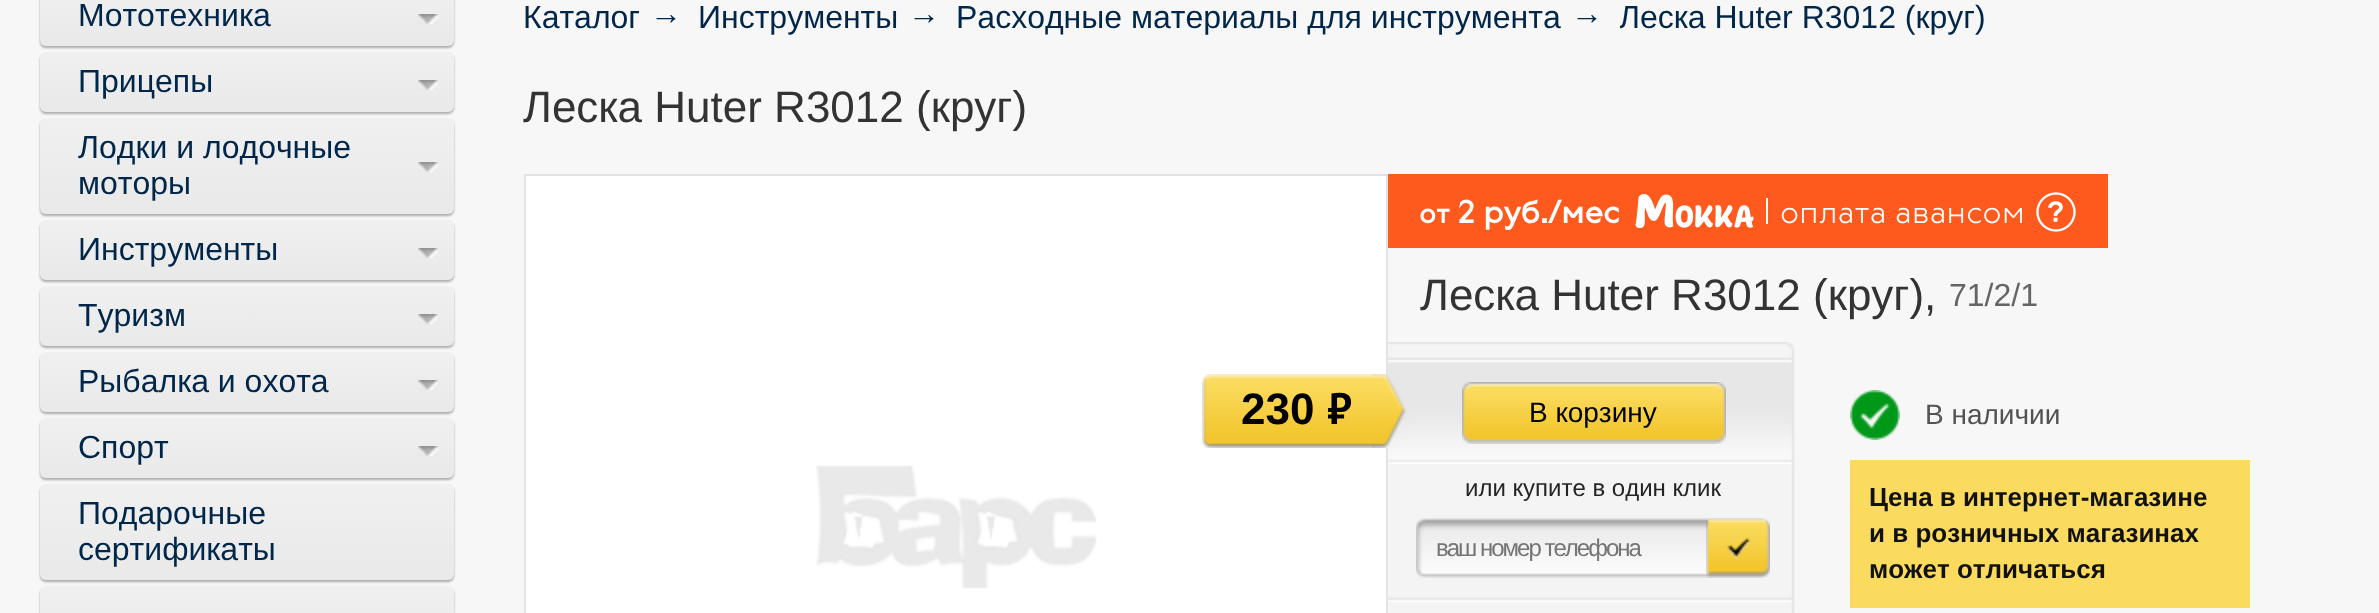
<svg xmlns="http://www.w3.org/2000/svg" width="2379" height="613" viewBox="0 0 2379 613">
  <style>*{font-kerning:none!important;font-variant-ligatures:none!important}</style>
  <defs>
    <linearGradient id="g1" gradientUnits="userSpaceOnUse" x1="247" y1="-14" x2="247" y2="46"><stop offset="0" stop-color="rgb(240,240,240)"/><stop offset="1" stop-color="rgb(233,233,233)"/></linearGradient>
    <linearGradient id="g2" gradientUnits="userSpaceOnUse" x1="247" y1="52" x2="247" y2="112"><stop offset="0" stop-color="rgb(240,240,240)"/><stop offset="1" stop-color="rgb(233,233,233)"/></linearGradient>
    <linearGradient id="g3" gradientUnits="userSpaceOnUse" x1="247" y1="118" x2="247" y2="214"><stop offset="0" stop-color="rgb(240,240,240)"/><stop offset="1" stop-color="rgb(233,233,233)"/></linearGradient>
    <linearGradient id="g4" gradientUnits="userSpaceOnUse" x1="247" y1="220" x2="247" y2="280"><stop offset="0" stop-color="rgb(240,240,240)"/><stop offset="1" stop-color="rgb(233,233,233)"/></linearGradient>
    <linearGradient id="g5" gradientUnits="userSpaceOnUse" x1="247" y1="286" x2="247" y2="346"><stop offset="0" stop-color="rgb(240,240,240)"/><stop offset="1" stop-color="rgb(233,233,233)"/></linearGradient>
    <linearGradient id="g6" gradientUnits="userSpaceOnUse" x1="247" y1="352" x2="247" y2="412"><stop offset="0" stop-color="rgb(240,240,240)"/><stop offset="1" stop-color="rgb(233,233,233)"/></linearGradient>
    <linearGradient id="g7" gradientUnits="userSpaceOnUse" x1="247" y1="418" x2="247" y2="478"><stop offset="0" stop-color="rgb(240,240,240)"/><stop offset="1" stop-color="rgb(233,233,233)"/></linearGradient>
    <linearGradient id="g8" gradientUnits="userSpaceOnUse" x1="247" y1="484" x2="247" y2="580"><stop offset="0" stop-color="rgb(240,240,240)"/><stop offset="1" stop-color="rgb(233,233,233)"/></linearGradient>
    <linearGradient id="g9" gradientUnits="userSpaceOnUse" x1="247" y1="586" x2="247" y2="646"><stop offset="0" stop-color="rgb(240,240,240)"/><stop offset="1" stop-color="rgb(233,233,233)"/></linearGradient>
    <clipPath id="clip1"><rect x="1620" y="0" width="366" height="42"/></clipPath>
  </defs>
  <rect width="100%" height="100%" fill="rgb(247,247,247)"/>
  <rect x="40" y="-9" width="414" height="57" rx="6" fill="rgba(0,0,0,0.3)" filter="blur(1px)"/>
  <rect x="40" y="-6" width="414" height="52" rx="6" fill="url(#g1)"/>
  <text x="78" y="26" font-family="Liberation Sans" font-size="32" fill="rgb(0,38,73)">Мототехника</text>
  <image x="418" y="14" width="20" height="10" href="pic1.png"/>
  <rect x="40" y="54" width="414" height="60" rx="6" fill="rgba(0,0,0,0.3)" filter="blur(1px)"/>
  <rect x="40" y="52" width="414" height="60" rx="6" fill="url(#g2)"/>
  <text x="78" y="92" font-family="Liberation Sans" font-size="32" fill="rgb(0,38,73)">Прицепы</text>
  <image x="418" y="80" width="20" height="10" href="pic1.png"/>
  <rect x="40" y="120" width="414" height="96" rx="6" fill="rgba(0,0,0,0.3)" filter="blur(1px)"/>
  <rect x="40" y="118" width="414" height="96" rx="6" fill="url(#g3)"/>
  <text x="78" y="158" font-family="Liberation Sans" font-size="32" fill="rgb(0,38,73)">Лодки и лодочные</text>
  <image x="418" y="162" width="20" height="10" href="pic1.png"/>
  <text x="78" y="194" font-family="Liberation Sans" font-size="32" fill="rgb(0,38,73)">моторы</text>
  <rect x="40" y="222" width="414" height="60" rx="6" fill="rgba(0,0,0,0.3)" filter="blur(1px)"/>
  <rect x="40" y="220" width="414" height="60" rx="6" fill="url(#g4)"/>
  <text x="78" y="260" font-family="Liberation Sans" font-size="32" fill="rgb(0,38,73)">Инструменты</text>
  <image x="418" y="248" width="20" height="10" href="pic1.png"/>
  <rect x="40" y="288" width="414" height="60" rx="6" fill="rgba(0,0,0,0.3)" filter="blur(1px)"/>
  <rect x="40" y="286" width="414" height="60" rx="6" fill="url(#g5)"/>
  <text x="78" y="326" font-family="Liberation Sans" font-size="32" fill="rgb(0,38,73)">Туризм</text>
  <image x="418" y="314" width="20" height="10" href="pic1.png"/>
  <rect x="40" y="354" width="414" height="60" rx="6" fill="rgba(0,0,0,0.3)" filter="blur(1px)"/>
  <rect x="40" y="352" width="414" height="60" rx="6" fill="url(#g6)"/>
  <text x="78" y="392" font-family="Liberation Sans" font-size="32" fill="rgb(0,38,73)">Рыбалка и охота</text>
  <image x="418" y="380" width="20" height="10" href="pic1.png"/>
  <rect x="40" y="420" width="414" height="60" rx="6" fill="rgba(0,0,0,0.3)" filter="blur(1px)"/>
  <rect x="40" y="418" width="414" height="60" rx="6" fill="url(#g7)"/>
  <text x="78" y="458" font-family="Liberation Sans" font-size="32" fill="rgb(0,38,73)">Спорт</text>
  <image x="418" y="446" width="20" height="10" href="pic1.png"/>
  <rect x="40" y="486" width="414" height="96" rx="6" fill="rgba(0,0,0,0.3)" filter="blur(1px)"/>
  <rect x="40" y="484" width="414" height="96" rx="6" fill="url(#g8)"/>
  <g font-family="Liberation Sans" font-size="32" fill="rgb(0,38,73)">
    <text>
      <tspan x="78" y="524">Подарочные</tspan>
      <tspan x="78" y="560">сертификаты</tspan>
    </text>
  </g>
  <rect x="40" y="588" width="414" height="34" rx="6" fill="rgba(0,0,0,0.3)" filter="blur(1px)"/>
  <rect x="40" y="586" width="414" height="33" rx="6" fill="url(#g9)"/>
  <g font-family="Liberation Sans" font-size="32" fill="rgb(0,38,73)">
    <text x="523" y="28">Каталог</text>
    <text x="650" y="24">→</text>
    <text x="698" y="28">Инструменты</text>
    <text x="908" y="24">→</text>
    <text x="956" y="28">Расходные материалы для инструмента</text>
    <text x="1571" y="24">→</text>
  </g>
  <g clip-path="url(#clip1)">
    <text x="1619" y="28" font-family="Liberation Sans" font-size="32" fill="rgb(0,38,73)">Леска Huter R3012 (круг)</text>
  </g>
  <text x="523" y="122" font-family="Liberation Sans" font-size="44" fill="rgb(51,51,51)">Леска Huter R3012 (круг)</text>
  <rect x="525" y="175" width="862" height="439" fill="none" stroke="rgb(229,226,226)" stroke-width="2"/>
  <rect x="526" y="176" width="860" height="437" fill="rgb(255,255,255)"/>
  <image x="816" y="465" width="281" height="124" href="pic2.png"/>
  <rect x="1388" y="174" width="720" height="74" fill="rgb(255,90,30)"/>
  <text x="1419" y="223" font-family="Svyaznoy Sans" font-size="28" font-weight="bold" fill="rgb(255,255,255)">от</text>
  <text x="1458" y="223" font-family="Svyaznoy Sans" font-size="32" font-weight="bold" fill="rgb(255,255,255)">2 руб./мес</text>
  <image x="1635" y="194" width="119" height="34" href="pic3.png"/>
  <rect x="1766" y="198" width="2" height="26" fill="rgb(255,255,255)"/>
  <text x="1780" y="223" font-family="Svyaznoy Sans" font-size="32" font-weight="300" fill="rgb(255,255,255)">оплата авансом</text>
  <image x="2036" y="192" width="40" height="40" href="pic4.png"/>
  <text x="1420" y="310" font-family="Liberation Sans" font-size="44" fill="rgb(51,51,51)">Леска Huter R3012 (круг),</text>
  <text x="1949" y="306" font-family="Liberation Sans" font-size="32" fill="rgb(101,101,101)">71/2/1</text>
  <image x="1388" y="342" width="407" height="271" href="pic5.png"/>
  <image x="1202" y="374" width="170" height="74" href="pic6.png"/>
  <image x="1372" y="374" width="38" height="74" href="pic7.png"/>
  <text x="1241" y="424" font-family="Liberation Sans" font-size="44" font-weight="bold" fill="rgb(0,0,0)">230</text>
  <text x="1327" y="424" font-family="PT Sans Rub" font-size="44" font-weight="bold" fill="rgb(0,0,0)">руб</text>
  <image x="1462" y="382" width="264" height="62" href="pic8.png"/>
  <text x="1529" y="422" font-family="Liberation Sans" font-size="28" fill="rgb(0,0,0)">В корзину</text>
  <text x="1465" y="496" font-family="Liberation Sans" font-size="24" fill="rgb(37,37,37)">или купите в один клик</text>
  <image x="1416" y="518" width="354" height="60" href="pic9.png"/>
  <text x="1436" y="556" font-family="Liberation Sans" font-size="24" letter-spacing="-2" fill="rgb(117,117,117)">ваш номер телефона</text>
  <image x="1706" y="518" width="64" height="60" href="pic10.png"/>
  <image x="1850" y="390" width="50" height="50" href="pic11.png"/>
  <text x="1925" y="424" font-family="Liberation Sans" font-size="28" fill="rgb(83,83,83)">В наличии</text>
  <rect x="1850" y="460" width="400" height="148" fill="rgb(251,219,94)"/>
  <g font-family="Liberation Sans" font-size="26" font-weight="bold" fill="rgb(17,17,17)">
    <text>
      <tspan x="1869" y="506">Цена в интернет-магазине</tspan>
      <tspan x="1869" y="542">и в розничных магазинах</tspan>
      <tspan x="1869" y="578">может отличаться</tspan>
    </text>
  </g>
</svg>
